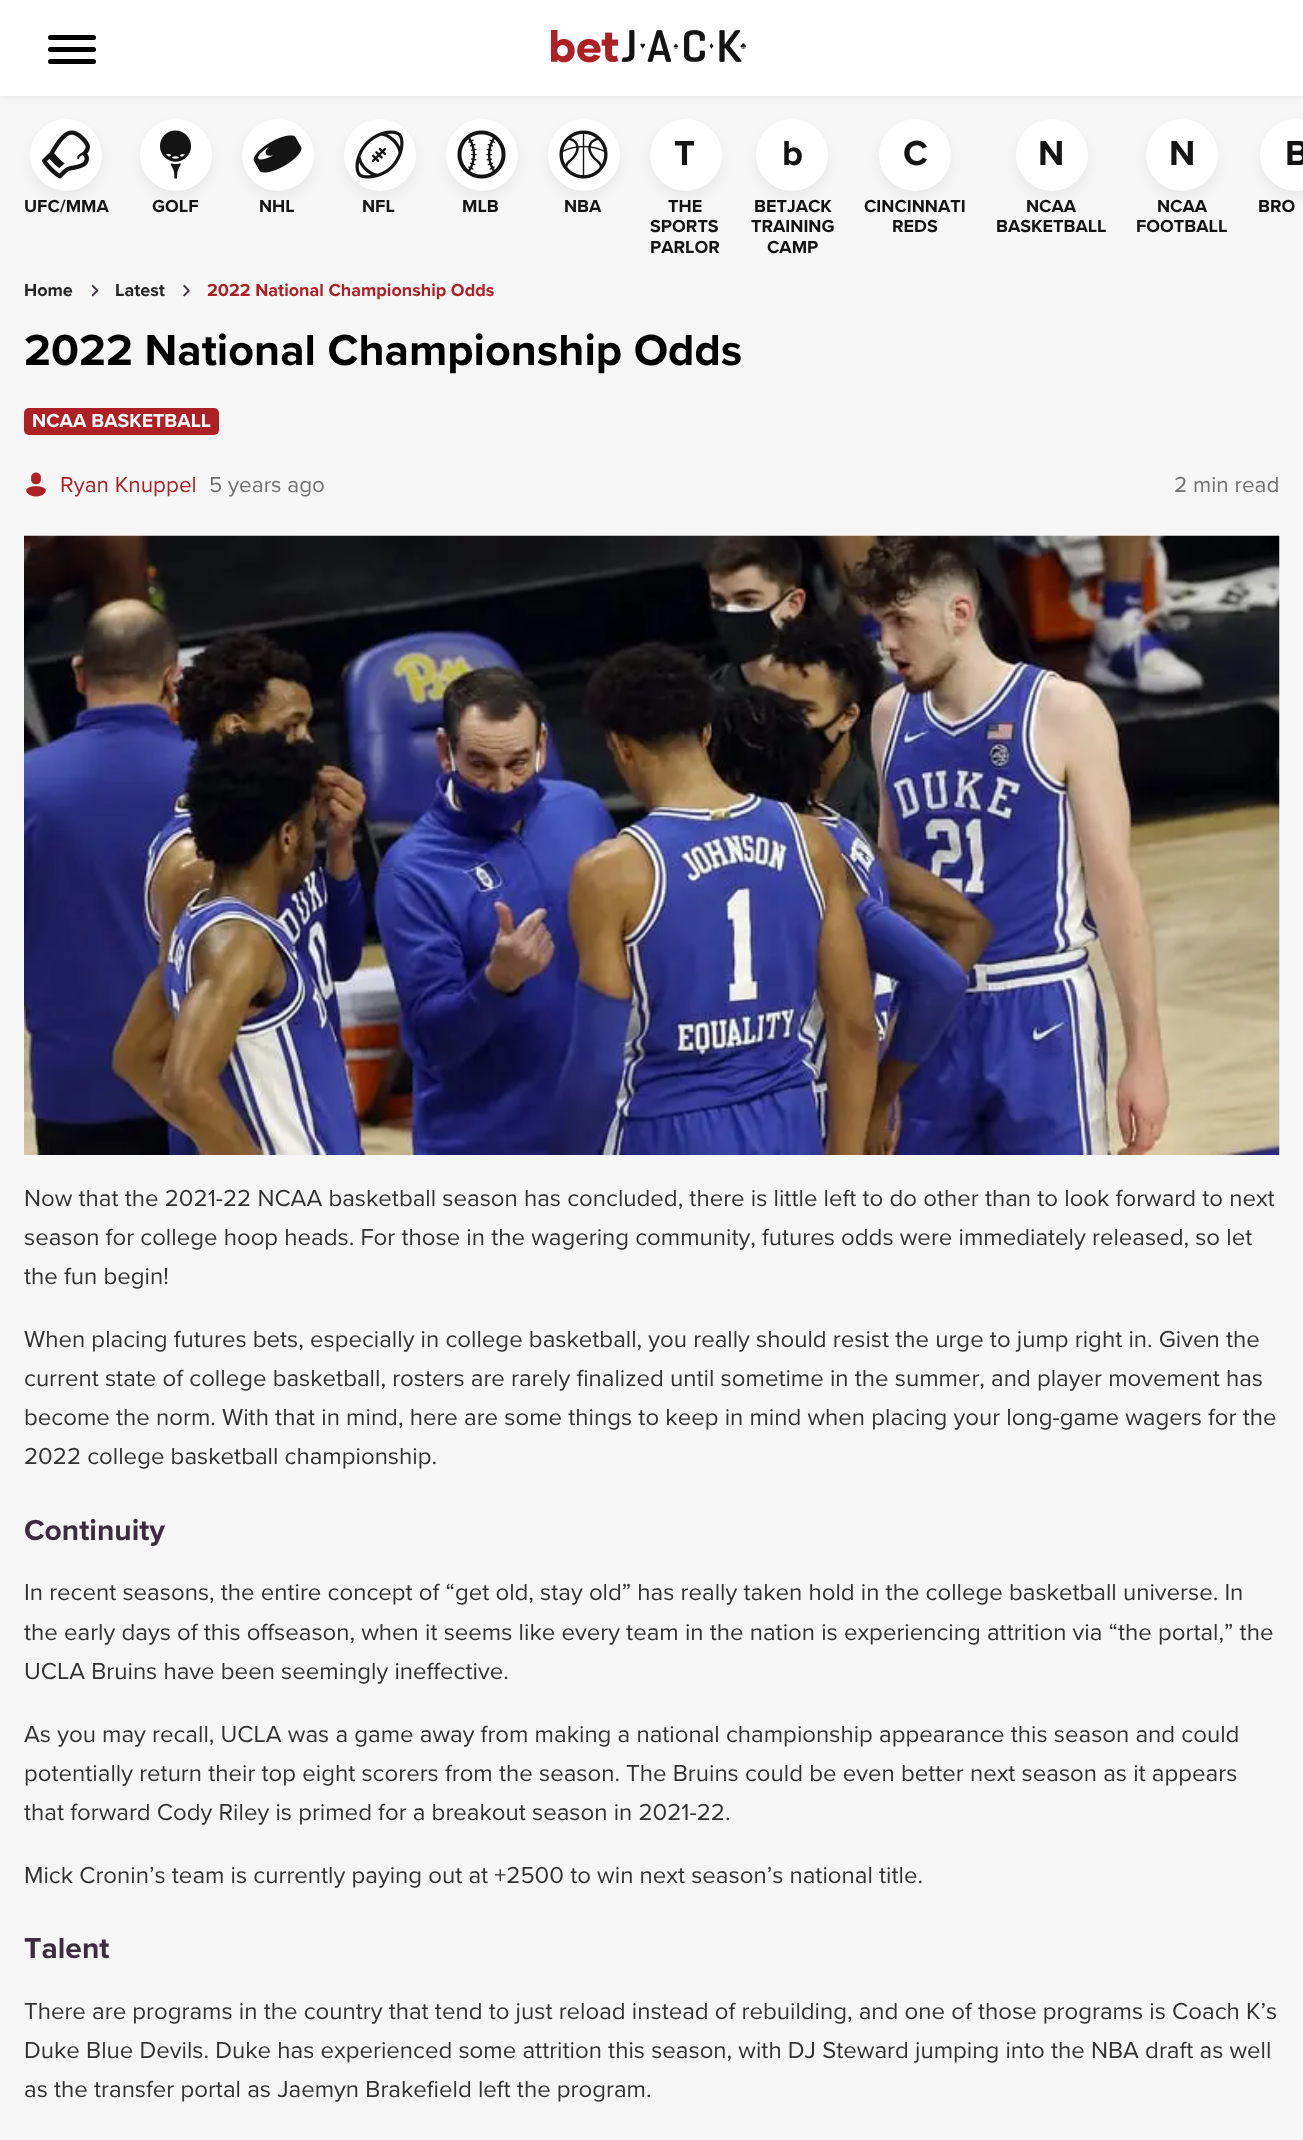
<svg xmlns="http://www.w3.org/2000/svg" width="1303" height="2140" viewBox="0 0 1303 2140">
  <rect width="100%" height="100%" fill="rgb(246,246,246)"/>
  <rect x="0" y="2" width="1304" height="96" fill="rgba(0,0,0,0.05)" filter="blur(3px)"/>
  <rect x="0" y="0" width="1303" height="96" fill="rgb(255,255,255)"/>
  <rect x="48" y="47" width="48" height="5" rx="2.5" fill="rgb(0,0,0)"/>
  <rect x="48" y="35" width="48" height="5" rx="2.5" fill="rgb(0,0,0)"/>
  <rect x="48" y="59" width="48" height="5" rx="2.5" fill="rgb(0,0,0)"/>
  <image x="551" y="30" width="196" height="33" href="pic1.png"/>
  <rect x="30" y="125" width="72" height="72" rx="36" fill="rgba(0,0,0,0.05)" filter="blur(6px)"/>
  <circle cx="66" cy="155" r="36" fill="rgb(255,255,255)"/>
  <image x="42" y="130" width="48" height="49" href="pic2.png"/>
  <text x="24" y="212" font-family="Proxima Nova" font-size="18" font-weight="bold" fill="rgb(20,20,20)">UFC/MMA</text>
  <rect x="140" y="125" width="72" height="72" rx="36" fill="rgba(0,0,0,0.05)" filter="blur(6px)"/>
  <circle cx="176" cy="155" r="36" fill="rgb(255,255,255)"/>
  <image x="160" y="130" width="31" height="49" href="pic3.png"/>
  <text x="152" y="212" font-family="Proxima Nova" font-size="18" font-weight="bold" fill="rgb(20,20,20)">GOLF</text>
  <rect x="242" y="125" width="72" height="72" rx="36" fill="rgba(0,0,0,0.05)" filter="blur(6px)"/>
  <circle cx="278" cy="155" r="36" fill="rgb(255,255,255)"/>
  <image x="253" y="135" width="49" height="38" href="pic4.png"/>
  <text x="259" y="212" font-family="Proxima Nova" font-size="18" font-weight="bold" fill="rgb(20,20,20)">NHL</text>
  <rect x="344" y="125" width="72" height="72" rx="36" fill="rgba(0,0,0,0.05)" filter="blur(6px)"/>
  <circle cx="380" cy="155" r="36" fill="rgb(255,255,255)"/>
  <image x="355" y="130" width="49" height="49" href="pic5.png"/>
  <text x="362" y="212" font-family="Proxima Nova" font-size="18" font-weight="bold" fill="rgb(20,20,20)">NFL</text>
  <rect x="446" y="125" width="72" height="72" rx="36" fill="rgba(0,0,0,0.05)" filter="blur(6px)"/>
  <circle cx="482" cy="155" r="36" fill="rgb(255,255,255)"/>
  <image x="457" y="130" width="49" height="49" href="pic6.png"/>
  <text x="462" y="212" font-family="Proxima Nova" font-size="18" font-weight="bold" fill="rgb(20,20,20)">MLB</text>
  <rect x="548" y="125" width="72" height="72" rx="36" fill="rgba(0,0,0,0.05)" filter="blur(6px)"/>
  <circle cx="584" cy="155" r="36" fill="rgb(255,255,255)"/>
  <image x="559" y="130" width="49" height="49" href="pic7.png"/>
  <text x="564" y="212" font-family="Proxima Nova" font-size="18" font-weight="bold" fill="rgb(20,20,20)">NBA</text>
  <rect x="650" y="125" width="72" height="72" rx="36" fill="rgba(0,0,0,0.05)" filter="blur(6px)"/>
  <circle cx="686" cy="155" r="36" fill="rgb(255,255,255)"/>
  <text x="674" y="165" font-family="Proxima Nova" font-size="36" font-weight="bold" fill="rgb(20,20,20)">T</text>
  <g font-family="Proxima Nova" font-size="18" font-weight="bold" fill="rgb(20,20,20)">
    <text x="668" y="212">THE</text>
    <text>
      <tspan x="650" y="232">SPORTS</tspan>
      <tspan x="650" y="253">PARLOR</tspan>
    </text>
  </g>
  <rect x="756" y="125" width="72" height="72" rx="36" fill="rgba(0,0,0,0.05)" filter="blur(6px)"/>
  <circle cx="792" cy="155" r="36" fill="rgb(255,255,255)"/>
  <text x="782" y="165" font-family="Proxima Nova" font-size="36" font-weight="bold" fill="rgb(20,20,20)">b</text>
  <g font-family="Proxima Nova" font-size="18" font-weight="bold" fill="rgb(20,20,20)">
    <text x="754" y="212">BETJACK</text>
    <text x="751" y="232">TRAINING</text>
    <text x="767" y="253">CAMP</text>
  </g>
  <rect x="879" y="125" width="72" height="72" rx="36" fill="rgba(0,0,0,0.05)" filter="blur(6px)"/>
  <circle cx="915" cy="155" r="36" fill="rgb(255,255,255)"/>
  <text x="903" y="165" font-family="Proxima Nova" font-size="36" font-weight="bold" fill="rgb(20,20,20)">C</text>
  <g font-family="Proxima Nova" font-size="18" font-weight="bold" fill="rgb(20,20,20)">
    <text x="864" y="212">CINCINNATI</text>
    <text x="892" y="232">REDS</text>
  </g>
  <rect x="1016" y="125" width="72" height="72" rx="36" fill="rgba(0,0,0,0.05)" filter="blur(6px)"/>
  <circle cx="1052" cy="155" r="36" fill="rgb(255,255,255)"/>
  <text x="1038" y="165" font-family="Proxima Nova" font-size="36" font-weight="bold" fill="rgb(20,20,20)">N</text>
  <g font-family="Proxima Nova" font-size="18" font-weight="bold" fill="rgb(20,20,20)">
    <text x="1026" y="212">NCAA</text>
    <text x="996" y="232">BASKETBALL</text>
  </g>
  <rect x="1146" y="125" width="72" height="72" rx="36" fill="rgba(0,0,0,0.05)" filter="blur(6px)"/>
  <circle cx="1182" cy="155" r="36" fill="rgb(255,255,255)"/>
  <text x="1169" y="165" font-family="Proxima Nova" font-size="36" font-weight="bold" fill="rgb(20,20,20)">N</text>
  <g font-family="Proxima Nova" font-size="18" font-weight="bold" fill="rgb(20,20,20)">
    <text x="1157" y="212">NCAA</text>
    <text x="1136" y="232">FOOTBALL</text>
  </g>
  <rect x="1260" y="125" width="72" height="72" rx="36" fill="rgba(0,0,0,0.05)" filter="blur(6px)"/>
  <circle cx="1296" cy="155" r="36" fill="rgb(255,255,255)"/>
  <text x="1285" y="165" font-family="Proxima Nova" font-size="36" font-weight="bold" fill="rgb(20,20,20)">B</text>
  <text x="1258" y="212" font-family="Proxima Nova" font-size="18" font-weight="bold" fill="rgb(20,20,20)">BRO</text>
  <text x="24" y="296" font-family="Proxima Nova" font-size="18" font-weight="bold" fill="rgb(37,37,37)">Home</text>
  <image x="91" y="284" width="8" height="13" href="pic8.png"/>
  <text x="115" y="296" font-family="Proxima Nova" font-size="18" font-weight="bold" fill="rgb(37,37,37)">Latest</text>
  <image x="183" y="284" width="7" height="13" href="pic9.png"/>
  <text x="207" y="296" font-family="Proxima Nova" font-size="18" font-weight="bold" fill="rgb(173,32,37)">2022 National Championship Odds</text>
  <text x="24" y="365" font-family="Proxima Nova" font-size="45" font-weight="bold" fill="rgb(0,0,0)">2022 National Championship Odds</text>
  <rect x="24" y="408" width="195" height="27" rx="5" fill="rgb(173,32,37)"/>
  <text x="32" y="427" font-family="Proxima Nova" font-size="19.5" font-weight="bold" fill="rgb(255,255,255)">NCAA BASKETBALL</text>
  <image x="26" y="472" width="20" height="25" href="pic10.png"/>
  <text x="60" y="492" font-family="Proxima Nova" font-size="22.5" fill="rgb(173,32,37)">Ryan Knuppel</text>
  <g font-family="Proxima Nova" font-size="22.5" fill="rgb(114,114,114)">
    <text x="209" y="492">5 years ago</text>
    <text x="1174" y="492">2 min read</text>
  </g>
  <image x="24" y="535" width="1256" height="620" href="pic11.png"/>
  <g font-family="Proxima Nova" font-size="24" fill="rgb(49,49,49)">
    <text>
      <tspan x="24" y="1206">Now that the 2021-22 NCAA basketball season has concluded, there is little left to do other than to look forward to next</tspan>
      <tspan x="24" y="1245">season for college hoop heads. For those in the wagering community, futures odds were immediately released, so let</tspan>
      <tspan x="24" y="1284">the fun begin!</tspan>
    </text>
    <text>
      <tspan x="24" y="1347">When placing futures bets, especially in college basketball, you really should resist the urge to jump right in. Given the</tspan>
      <tspan x="24" y="1386">current state of college basketball, rosters are rarely finalized until sometime in the summer, and player movement has</tspan>
      <tspan x="24" y="1425">become the norm. With that in mind, here are some things to keep in mind when placing your long-game wagers for the</tspan>
      <tspan x="24" y="1464">2022 college basketball championship.</tspan>
    </text>
  </g>
  <text x="24" y="1540" font-family="Proxima Nova" font-size="30" font-weight="bold" fill="rgb(59,45,61)">Continuity</text>
  <g font-family="Proxima Nova" font-size="24" fill="rgb(49,49,49)">
    <text>
      <tspan x="24" y="1600">In recent seasons, the entire concept of “get old, stay old” has really taken hold in the college basketball universe. In</tspan>
      <tspan x="24" y="1640">the early days of this offseason, when it seems like every team in the nation is experiencing attrition via “the portal,” the</tspan>
      <tspan x="24" y="1679">UCLA Bruins have been seemingly ineffective.</tspan>
    </text>
    <text>
      <tspan x="24" y="1742">As you may recall, UCLA was a game away from making a national championship appearance this season and could</tspan>
      <tspan x="24" y="1781">potentially return their top eight scorers from the season. The Bruins could be even better next season as it appears</tspan>
      <tspan x="24" y="1820">that forward Cody Riley is primed for a breakout season in 2021-22.</tspan>
    </text>
    <text x="24" y="1883">Mick Cronin’s team is currently paying out at +2500 to win next season’s national title.</text>
  </g>
  <text x="24" y="1958" font-family="Proxima Nova" font-size="30" font-weight="bold" fill="rgb(59,45,61)">Talent</text>
  <g font-family="Proxima Nova" font-size="24" fill="rgb(49,49,49)">
    <text>
      <tspan x="24" y="2019">There are programs in the country that tend to just reload instead of rebuilding, and one of those programs is Coach K’s</tspan>
      <tspan x="24" y="2058">Duke Blue Devils. Duke has experienced some attrition this season, with DJ Steward jumping into the NBA draft as well</tspan>
      <tspan x="24" y="2097">as the transfer portal as Jaemyn Brakefield left the program.</tspan>
    </text>
  </g>
</svg>
